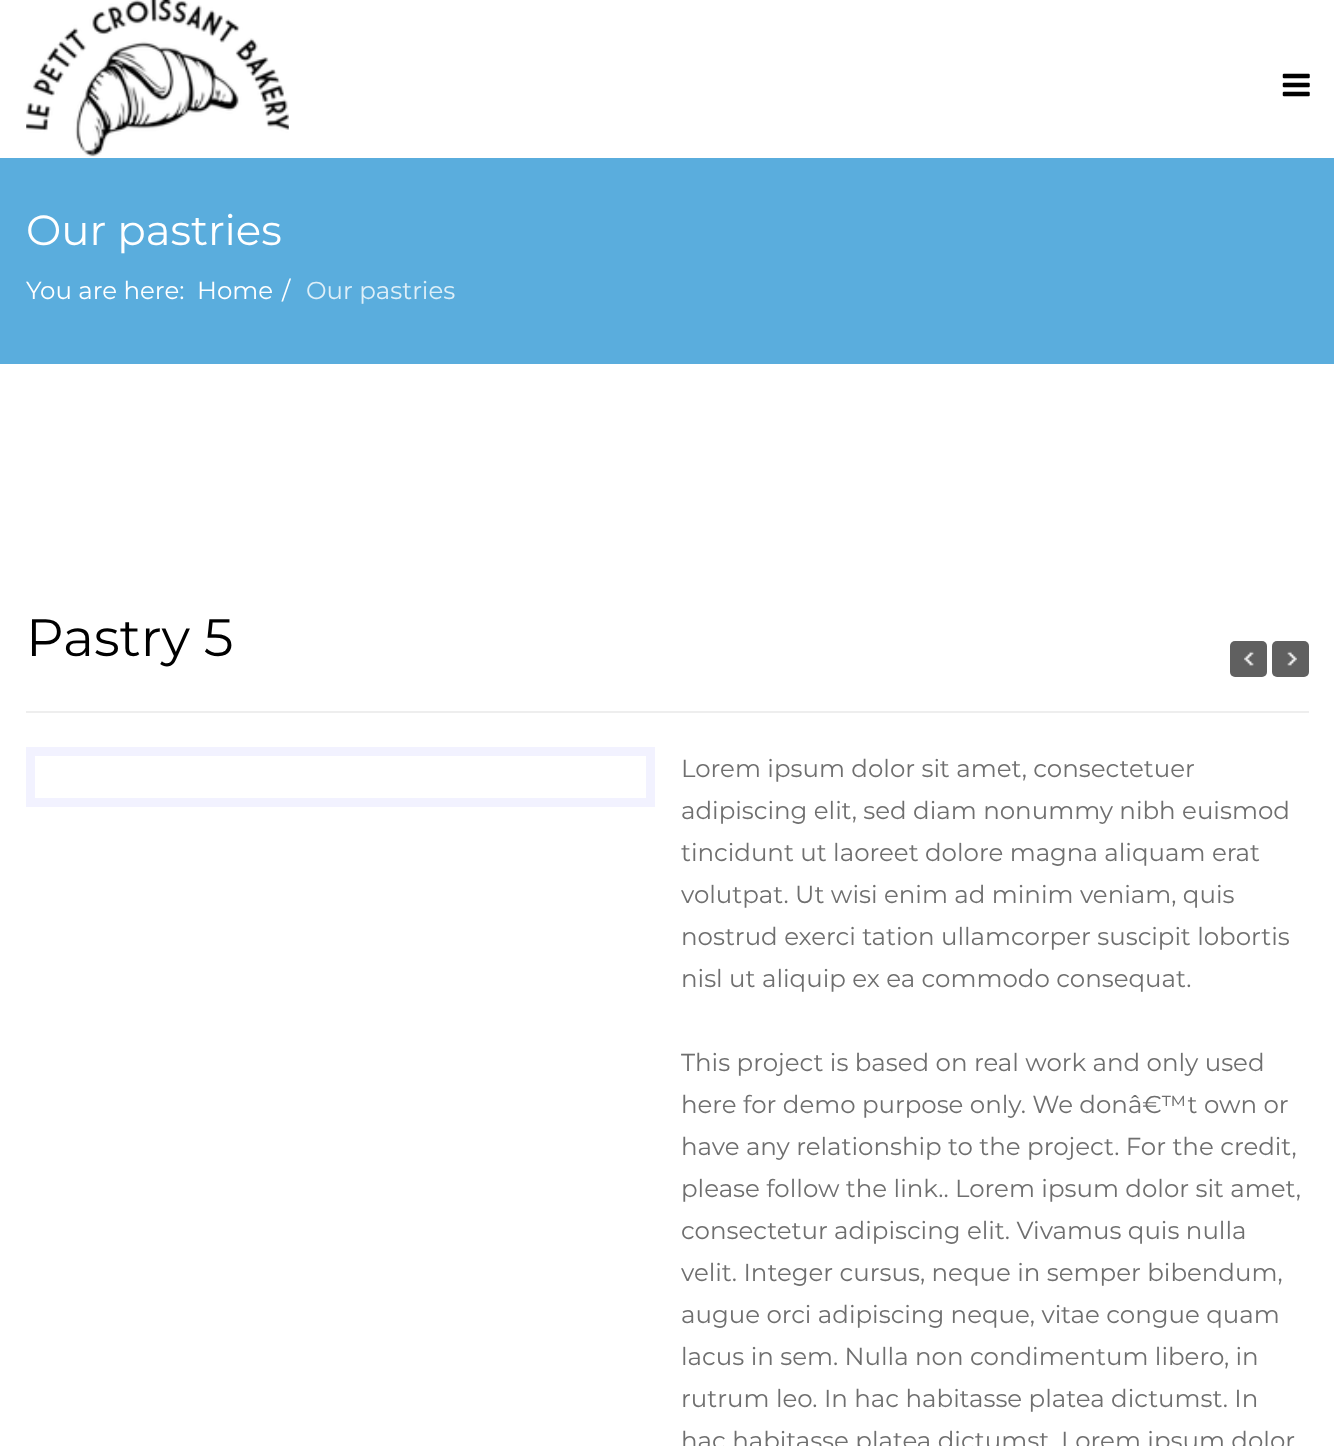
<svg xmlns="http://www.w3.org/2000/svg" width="1334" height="1446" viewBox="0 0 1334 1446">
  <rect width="100%" height="100%" fill="rgb(255,255,255)"/>
  <image x="26" y="0" width="263" height="157" href="pic1.png"/>
  <image x="1282" y="73" width="28" height="24" href="pic2.png"/>
  <rect x="0" y="158" width="1334" height="206" fill="rgb(90,173,221)"/>
  <text x="26" y="245" font-family="Montserrat" font-size="42" fill="rgb(255,255,255)">Our pastries</text>
  <g font-family="Montserrat" font-size="24.5" fill="rgb(255,255,255)">
    <text x="26" y="299">You are here:</text>
    <text x="197" y="299">Home</text>
    <text x="282" y="299">/</text>
  </g>
  <text x="306" y="299" font-family="Montserrat" font-size="24.5" fill="rgb(222,239,248)">Our pastries</text>
  <rect x="26" y="711" width="1283" height="2" fill="rgb(238,238,238)"/>
  <text x="26" y="656" font-family="Montserrat" font-size="52.5" fill="rgb(0,0,0)">Pastry 5</text>
  <rect x="1230" y="641" width="37" height="36" rx="5" fill="rgb(96,96,96)"/>
  <image x="1244" y="651" width="10" height="15" href="pic3.png"/>
  <rect x="1272" y="641" width="37" height="36" rx="5" fill="rgb(96,96,96)"/>
  <image x="1287" y="651" width="10" height="15" href="pic4.png"/>
  <rect x="30.5" y="751.5" width="620" height="51" fill="none" stroke="rgb(242,242,255)" stroke-width="9"/>
  <g font-family="Montserrat" font-size="24.5" fill="rgb(111,111,111)">
    <text>
      <tspan x="681" y="777">Lorem ipsum dolor sit amet, consectetuer</tspan>
      <tspan x="681" y="819">adipiscing elit, sed diam nonummy nibh euismod</tspan>
      <tspan x="681" y="861">tincidunt ut laoreet dolore magna aliquam erat</tspan>
      <tspan x="681" y="903">volutpat. Ut wisi enim ad minim veniam, quis</tspan>
      <tspan x="681" y="945">nostrud exerci tation ullamcorper suscipit lobortis</tspan>
      <tspan x="681" y="987">nisl ut aliquip ex ea commodo consequat.</tspan>
    </text>
    <text>
      <tspan x="681" y="1071">This project is based on real work and only used</tspan>
      <tspan x="681" y="1113">here for demo purpose only. We donâ€™t own or</tspan>
      <tspan x="681" y="1155">have any relationship to the project. For the credit,</tspan>
      <tspan x="681" y="1197">please follow the link.. Lorem ipsum dolor sit amet,</tspan>
      <tspan x="681" y="1239">consectetur adipiscing elit. Vivamus quis nulla</tspan>
      <tspan x="681" y="1281">velit. Integer cursus, neque in semper bibendum,</tspan>
      <tspan x="681" y="1323">augue orci adipiscing neque, vitae congue quam</tspan>
      <tspan x="681" y="1365">lacus in sem. Nulla non condimentum libero, in</tspan>
      <tspan x="681" y="1407">rutrum leo. In hac habitasse platea dictumst. In</tspan>
      <tspan x="681" y="1449">hac habitasse platea dictumst. Lorem ipsum dolor</tspan>
    </text>
  </g>
</svg>
